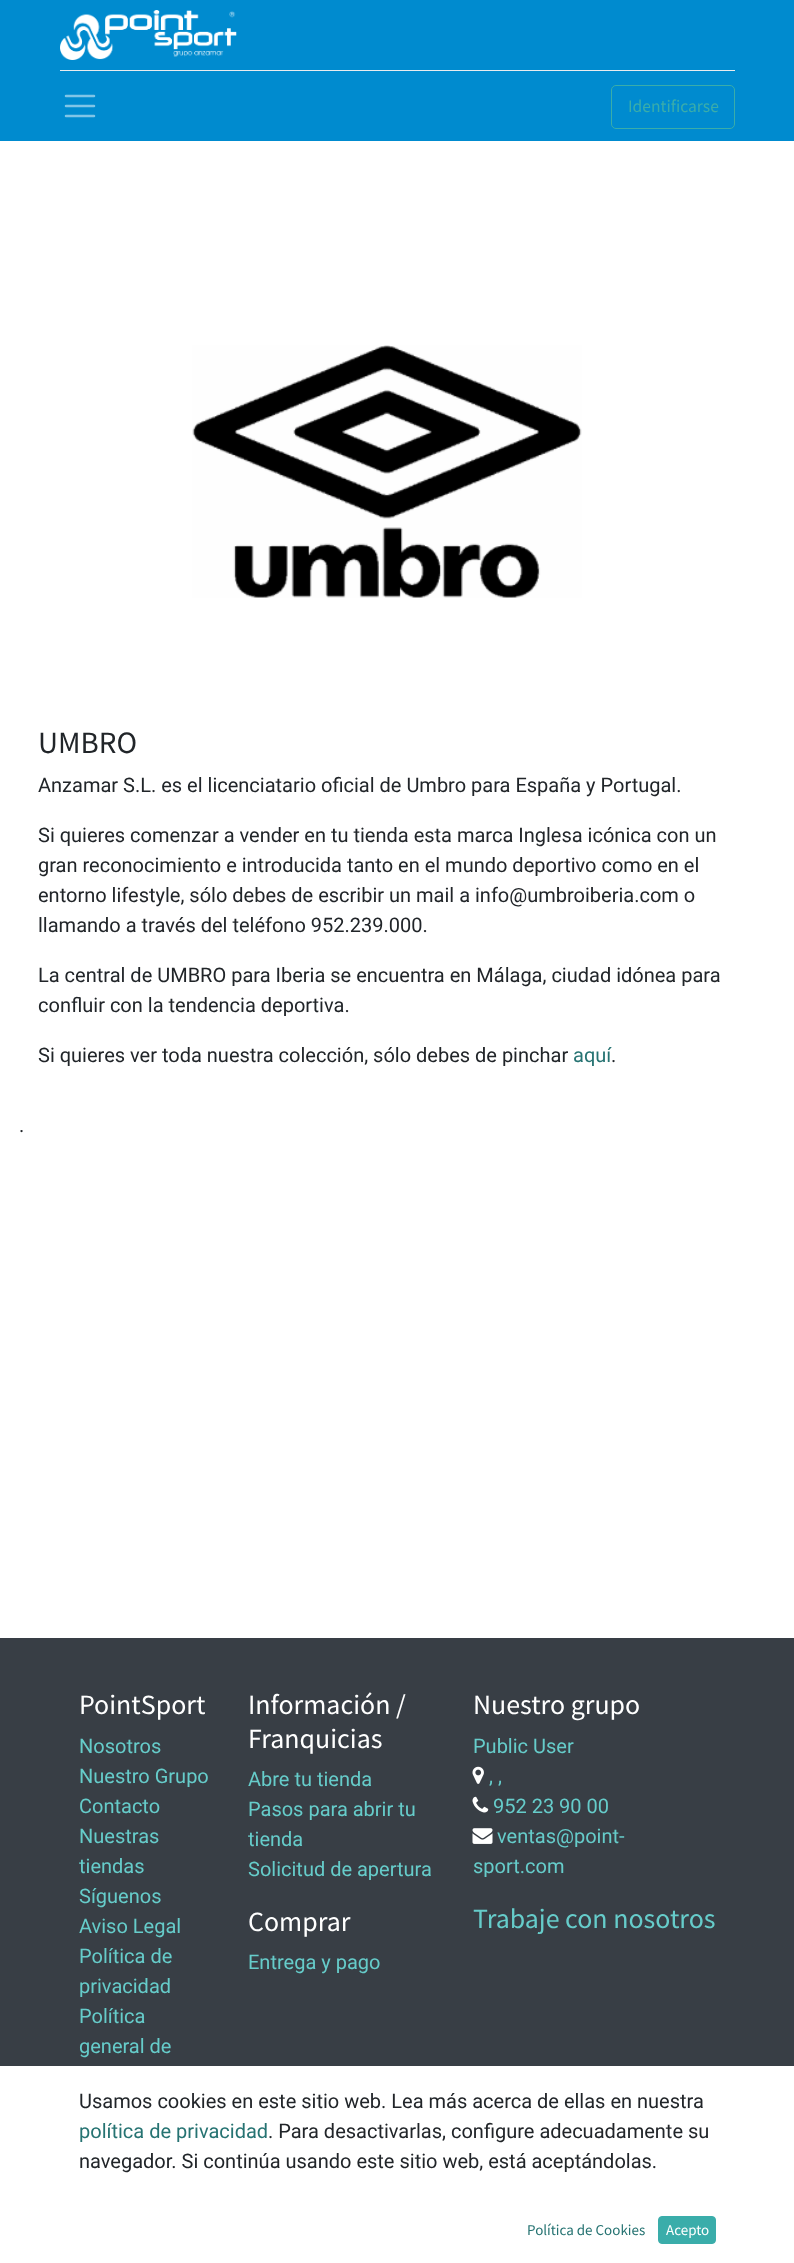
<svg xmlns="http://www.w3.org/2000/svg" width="794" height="2263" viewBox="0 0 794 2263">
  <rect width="100%" height="100%" fill="rgb(255,255,255)"/>
  <rect x="0" y="0" width="794" height="141" fill="rgb(0,139,207)"/>
  <image x="60" y="10" width="177" height="50" href="pic1.png"/>
  <rect x="60" y="70" width="675" height="1" fill="rgb(233,236,239)"/>
  <path d="M66 96H94M66 106H94M66 116H94" fill="none" stroke="rgb(128,197,231)" stroke-width="2.5" stroke-linecap="round"/>
  <rect x="611.5" y="85.5" width="123" height="43" rx="4.5" fill="none" stroke="rgb(58,173,170)"/>
  <text x="628" y="112" font-family="Source Sans Pro" font-size="17.5" fill="rgb(58,173,170)">Identificarse</text>
  <image x="192" y="345" width="390" height="253" href="pic2.png"/>
  <text x="38" y="753" font-family="Source Sans Pro" font-size="31" fill="rgb(33,37,41)">UMBRO</text>
  <g font-family="Roboto" font-size="20" fill="rgb(33,37,41)">
    <text x="38" y="792">Anzamar S.L. es el licenciatario oficial de Umbro para España y Portugal.</text>
    <text>
      <tspan x="38" y="842">Si quieres comenzar a vender en tu tienda esta marca Inglesa icónica con un</tspan>
      <tspan x="38" y="872">gran reconocimiento e introducida tanto en el mundo deportivo como en el</tspan>
      <tspan x="38" y="902">entorno lifestyle, sólo debes de escribir un mail a info@umbroiberia.com o</tspan>
      <tspan x="38" y="932">llamando a través del teléfono 952.239.000.</tspan>
    </text>
    <text>
      <tspan x="38" y="982">La central de UMBRO para Iberia se encuentra en Málaga, ciudad idónea para</tspan>
      <tspan x="38" y="1012">confluir con la tendencia deportiva.</tspan>
    </text>
    <text x="38" y="1062">Si quieres ver toda nuestra colección, sólo debes de pinchar</text>
  </g>
  <text x="573" y="1062" font-family="Roboto" font-size="20" fill="rgb(38,115,114)">aquí</text>
  <g font-family="Roboto" font-size="20" fill="rgb(33,37,41)">
    <text x="611" y="1062">.</text>
    <text x="19" y="1132">.</text>
  </g>
  <rect x="0" y="1638" width="794" height="428" fill="rgb(56,62,69)"/>
  <text x="79" y="1714" font-family="Source Sans Pro" font-size="27.9" fill="rgb(255,255,255)">PointSport</text>
  <g font-family="Roboto" font-size="20" fill="rgb(102,204,202)">
    <text>
      <tspan x="79" y="1753">Nosotros</tspan>
      <tspan x="79" y="1783">Nuestro Grupo</tspan>
      <tspan x="79" y="1813">Contacto</tspan>
      <tspan x="79" y="1843">Nuestras</tspan>
      <tspan x="79" y="1873">tiendas</tspan>
      <tspan x="79" y="1903">Síguenos</tspan>
      <tspan x="79" y="1933">Aviso Legal</tspan>
      <tspan x="79" y="1963">Política de</tspan>
      <tspan x="79" y="1993">privacidad</tspan>
      <tspan x="79" y="2023">Política</tspan>
      <tspan x="79" y="2053">general de</tspan>
    </text>
  </g>
  <g font-family="Source Sans Pro" font-size="27.9" fill="rgb(255,255,255)">
    <text>
      <tspan x="248" y="1714">Información /</tspan>
      <tspan x="248" y="1748">Franquicias</tspan>
    </text>
  </g>
  <g font-family="Roboto" font-size="20" fill="rgb(102,204,202)">
    <text>
      <tspan x="248" y="1786">Abre tu tienda</tspan>
      <tspan x="248" y="1816">Pasos para abrir tu</tspan>
      <tspan x="248" y="1846">tienda</tspan>
      <tspan x="248" y="1876">Solicitud de apertura</tspan>
    </text>
  </g>
  <text x="248" y="1931" font-family="Source Sans Pro" font-size="27.9" fill="rgb(255,255,255)">Comprar</text>
  <text x="248" y="1969" font-family="Roboto" font-size="20" fill="rgb(102,204,202)">Entrega y pago</text>
  <text x="473" y="1714" font-family="Source Sans Pro" font-size="27.9" fill="rgb(255,255,255)">Nuestro grupo</text>
  <text x="473" y="1753" font-family="Roboto" font-size="20" fill="rgb(102,204,202)">Public User</text>
  <image x="472" y="1766" width="12" height="18" href="pic3.png"/>
  <text x="489" y="1783" font-family="Roboto" font-size="20" fill="rgb(102,204,202)">, ,</text>
  <image x="472" y="1796" width="17" height="17" href="pic4.png"/>
  <text x="493" y="1813" font-family="Roboto" font-size="20" fill="rgb(102,204,202)">952 23 90 00</text>
  <image x="472" y="1828" width="21" height="16" href="pic5.png"/>
  <g font-family="Roboto" font-size="20" fill="rgb(102,204,202)">
    <text x="497" y="1843">ventas@point-</text>
    <text x="473" y="1873">sport.com</text>
  </g>
  <text x="473" y="1928" font-family="Source Sans Pro" font-size="27.9" fill="rgb(102,204,202)">Trabaje con nosotros</text>
  <text x="79" y="2108" font-family="Roboto" font-size="20" fill="rgb(33,37,41)">Usamos cookies en este sitio web. Lea más acerca de ellas en nuestra</text>
  <text x="79" y="2138" font-family="Roboto" font-size="20" fill="rgb(38,115,114)">política de privacidad</text>
  <g font-family="Roboto" font-size="20" fill="rgb(33,37,41)">
    <text x="268" y="2138">. Para desactivarlas, configure adecuadamente su</text>
    <text x="79" y="2168">navegador. Si continúa usando este sitio web, está aceptándolas.</text>
  </g>
  <text x="527" y="2235" font-family="Source Sans Pro" font-size="15" fill="rgb(38,115,114)">Política de Cookies</text>
  <rect x="658.5" y="2216.5" width="57" height="27" rx="3.5" fill="rgb(58,173,170)" stroke="rgb(58,173,170)"/>
  <text x="666" y="2235" font-family="Source Sans Pro" font-size="15" fill="rgb(255,255,255)">Acepto</text>
</svg>
